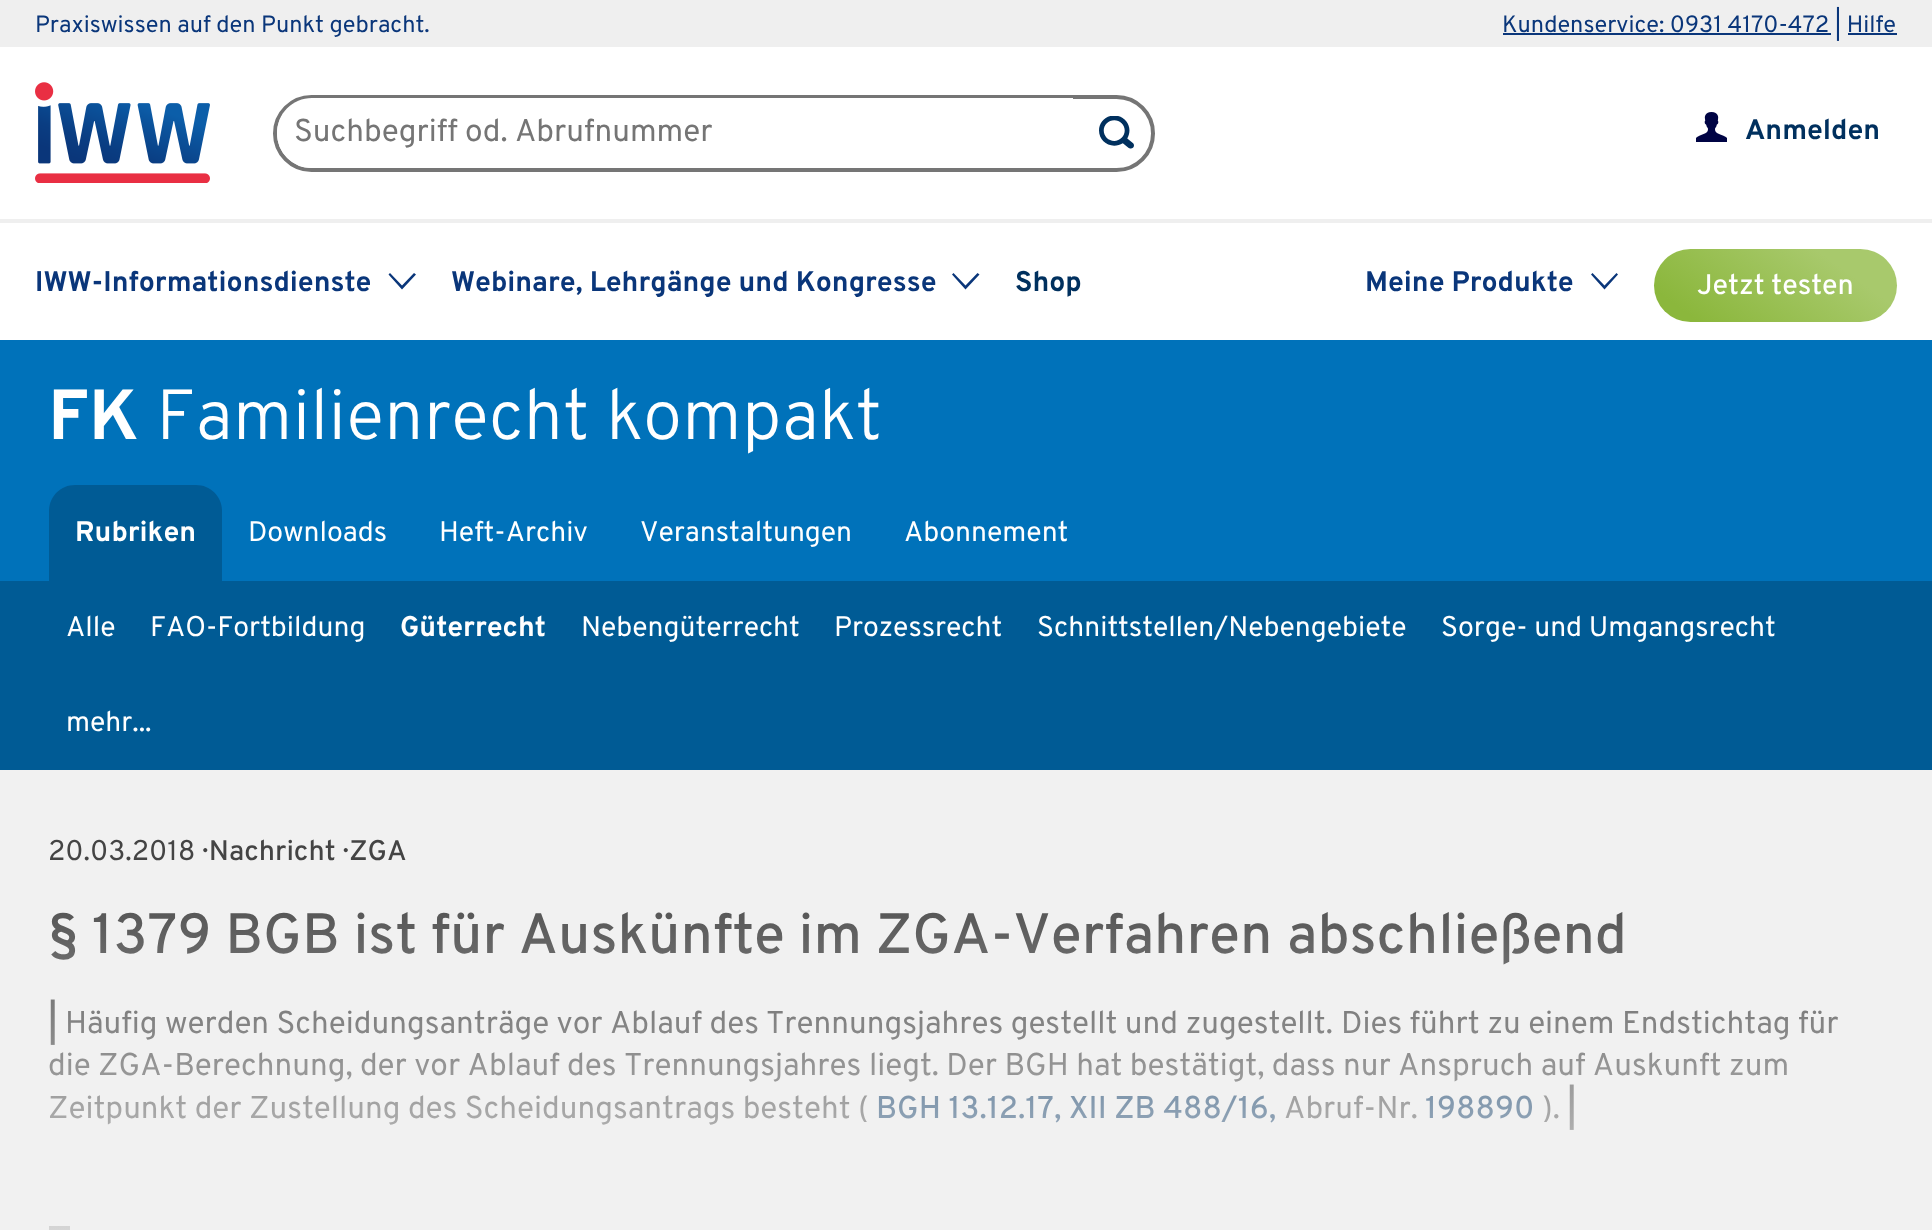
<svg xmlns="http://www.w3.org/2000/svg" width="1932" height="1230" viewBox="0 0 1932 1230">
  <style>*{font-kerning:none!important;font-variant-ligatures:none!important}</style>
  <defs>
    <linearGradient id="g1" gradientUnits="userSpaceOnUse" x1="1835" y1="203" x2="1716" y2="367"><stop offset="0.24" stop-color="rgb(168,201,108)"/><stop offset="0.87" stop-color="rgb(139,183,60)"/></linearGradient>
    <linearGradient id="g2" gradientUnits="userSpaceOnUse" x1="966" y1="863" x2="966" y2="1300"><stop offset="0" stop-color="rgb(241,241,241)" stop-opacity="0"/><stop offset="1" stop-color="rgb(241,241,241)"/></linearGradient>
  </defs>
  <rect width="100%" height="100%" fill="rgb(255,255,255)"/>
  <rect x="0" y="0" width="1932" height="47" fill="rgb(239,239,239)"/>
  <text x="35" y="32" font-family="Overpass" font-size="23.6" fill="rgb(10,54,122)">Praxiswissen auf den Punkt gebracht.</text>
  <rect x="1503" y="33" width="328" height="2" fill="rgb(10,54,122)"/>
  <text x="1502" y="32" font-family="Overpass" font-size="23.6" fill="rgb(10,54,122)">Kundenservice: 0931 4170-472 | Hilfe</text>
  <rect x="1848" y="33" width="49" height="2" fill="rgb(10,54,122)"/>
  <rect x="0" y="219" width="1932" height="4" fill="rgb(239,239,239)"/>
  <image x="35" y="82" width="175" height="101" href="pic1.png"/>
  <rect x="275" y="97" width="878" height="73" rx="36.5" fill="none" stroke="rgb(117,117,117)" stroke-width="4"/>
  <path d="M312 98H1073V168H312C292.5 168 277 152.5 277 133C277 113.5 292.5 98 312 98Z" fill="rgb(255,255,255)"/>
  <text x="294" y="141" font-family="Overpass" font-size="31.5" fill="rgb(117,117,117)">Suchbegriff od. Abrufnummer</text>
  <image x="1099" y="116" width="35" height="33" href="pic2.png"/>
  <image x="1696" y="112" width="31" height="30" href="pic3.png"/>
  <text x="1745" y="139" font-family="Overpass" font-size="28.4" font-weight="bold" fill="rgb(0,48,94)">Anmelden</text>
  <text x="35" y="291" font-family="Overpass" font-size="28.4" font-weight="bold" fill="rgb(10,54,122)">IWW-Informationsdienste</text>
  <path d="M414 273L416 274.5L402 289.5L388.5 274.5L390 273L402 285.5Z" fill="rgb(10,54,122)"/>
  <text x="451" y="291" font-family="Overpass" font-size="28.4" font-weight="bold" fill="rgb(10,54,122)">Webinare, Lehrgänge und Kongresse</text>
  <path d="M977.5 273L979.5 274.5L965.5 289.5L952 274.5L953.5 273L965.5 285.5Z" fill="rgb(10,54,122)"/>
  <text x="1015" y="291" font-family="Overpass" font-size="28.4" font-weight="bold" fill="rgb(0,48,94)">Shop</text>
  <text x="1365" y="291" font-family="Overpass" font-size="28.4" font-weight="bold" fill="rgb(10,54,122)">Meine Produkte</text>
  <path d="M1616.5 273L1618 274.5L1604.5 289.5L1591 274.5L1592.5 273L1604.5 285.5Z" fill="rgb(10,54,122)"/>
  <rect x="1654" y="249" width="243" height="73" rx="36.5" fill="url(#g1)"/>
  <text x="1697" y="294" font-family="Overpass" font-size="28.4" font-weight="500" fill="rgb(255,255,255)">Jetzt testen</text>
  <rect x="0" y="340" width="1932" height="241" fill="rgb(0,114,186)"/>
  <text x="48" y="439" font-family="Overpass" font-size="70.9" font-weight="bold" fill="rgb(255,255,255)">FK</text>
  <text x="156" y="439" font-family="Overpass" font-size="70.9" font-weight="300" fill="rgb(255,255,255)">Familienrecht kompakt</text>
  <path d="M75 485H196C210.5 485 222 496.5 222 511V581H49V511C49 496.5 60.5 485 75 485Z" fill="rgb(0,91,149)"/>
  <text x="75" y="541" font-family="Overpass" font-size="28.4" font-weight="bold" fill="rgb(255,255,255)">Rubriken</text>
  <g font-family="Overpass" font-size="28.4" fill="rgb(255,255,255)">
    <text x="248" y="541">Downloads</text>
    <text x="439" y="541">Heft-Archiv</text>
    <text x="640" y="541">Veranstaltungen</text>
    <text x="904" y="541">Abonnement</text>
  </g>
  <rect x="0" y="581" width="1932" height="189" fill="rgb(0,91,149)"/>
  <g font-family="Overpass" font-size="28.4" fill="rgb(255,255,255)">
    <text x="66" y="636">Alle</text>
    <text x="150" y="636">FAO-Fortbildung</text>
  </g>
  <text x="400" y="636" font-family="Overpass" font-size="28.4" font-weight="bold" fill="rgb(255,255,255)">Güterrecht</text>
  <g font-family="Overpass" font-size="28.4" fill="rgb(255,255,255)">
    <text x="581" y="636">Nebengüterrecht</text>
    <text x="834" y="636">Prozessrecht</text>
    <text x="1037" y="636">Schnittstellen/Nebengebiete</text>
    <text x="1441" y="636">Sorge- und Umgangsrecht</text>
    <text x="66" y="731">mehr...</text>
  </g>
  <rect x="0" y="770" width="1932" height="460" fill="rgb(241,241,241)"/>
  <text x="48" y="860" font-family="Overpass" font-size="28.4" fill="rgb(68,68,68)">20.03.2018</text>
  <text x="202" y="860" font-family="Overpass" font-size="28.4" font-weight="500" fill="rgb(68,68,68)">· Nachricht · ZGA</text>
  <text x="48" y="953" font-family="Overpass" font-size="56.7" font-weight="500" fill="rgb(68,68,68)">§ 1379 BGB ist für Auskünfte im ZGA-Verfahren</text>
  <text x="1287" y="953" font-family="Overpass" font-size="56.7" font-weight="500" fill="rgb(68,68,68)">abschließend</text>
  <text x="48" y="1033" font-family="Overpass" font-size="31.5" font-weight="bold" fill="rgb(68,68,68)">|</text>
  <g font-family="Overpass" font-size="31.5" fill="rgb(68,68,68)">
    <text x="65" y="1033">Häufig werden Scheidungsanträge vor Ablauf des</text>
    <text x="766" y="1033">Trennungsjahres gestellt und zugestellt.</text>
    <text x="1341" y="1033">Dies führt zu einem Endstichtag für</text>
    <text x="48" y="1075">die ZGA-Berechnung, der vor Ablauf des Trennungsjahres</text>
    <text x="869" y="1075">liegt. Der BGH hat bestätigt, dass nur Anspruch auf Auskunft zum</text>
    <text x="48" y="1118">Zeitpunkt der Zustellung des Scheidungsantrags besteht (</text>
  </g>
  <text x="876" y="1118" font-family="Overpass" font-size="31.5" font-weight="500" fill="rgb(0,48,94)">BGH 13.12.17, XII ZB 488/16,</text>
  <text x="1284" y="1118" font-family="Overpass" font-size="31.5" fill="rgb(68,68,68)">Abruf-Nr.</text>
  <text x="1425" y="1118" font-family="Overpass" font-size="31.5" font-weight="500" fill="rgb(0,48,94)">198890</text>
  <text x="1542" y="1118" font-family="Overpass" font-size="31.5" fill="rgb(68,68,68)">).</text>
  <text x="1567" y="1118" font-family="Overpass" font-size="31.5" font-weight="bold" fill="rgb(68,68,68)">|</text>
  <rect x="49" y="1226" width="21" height="4" fill="rgb(68,68,68)"/>
  <rect x="49" y="912" width="1789" height="318" fill="url(#g2)"/>
</svg>
